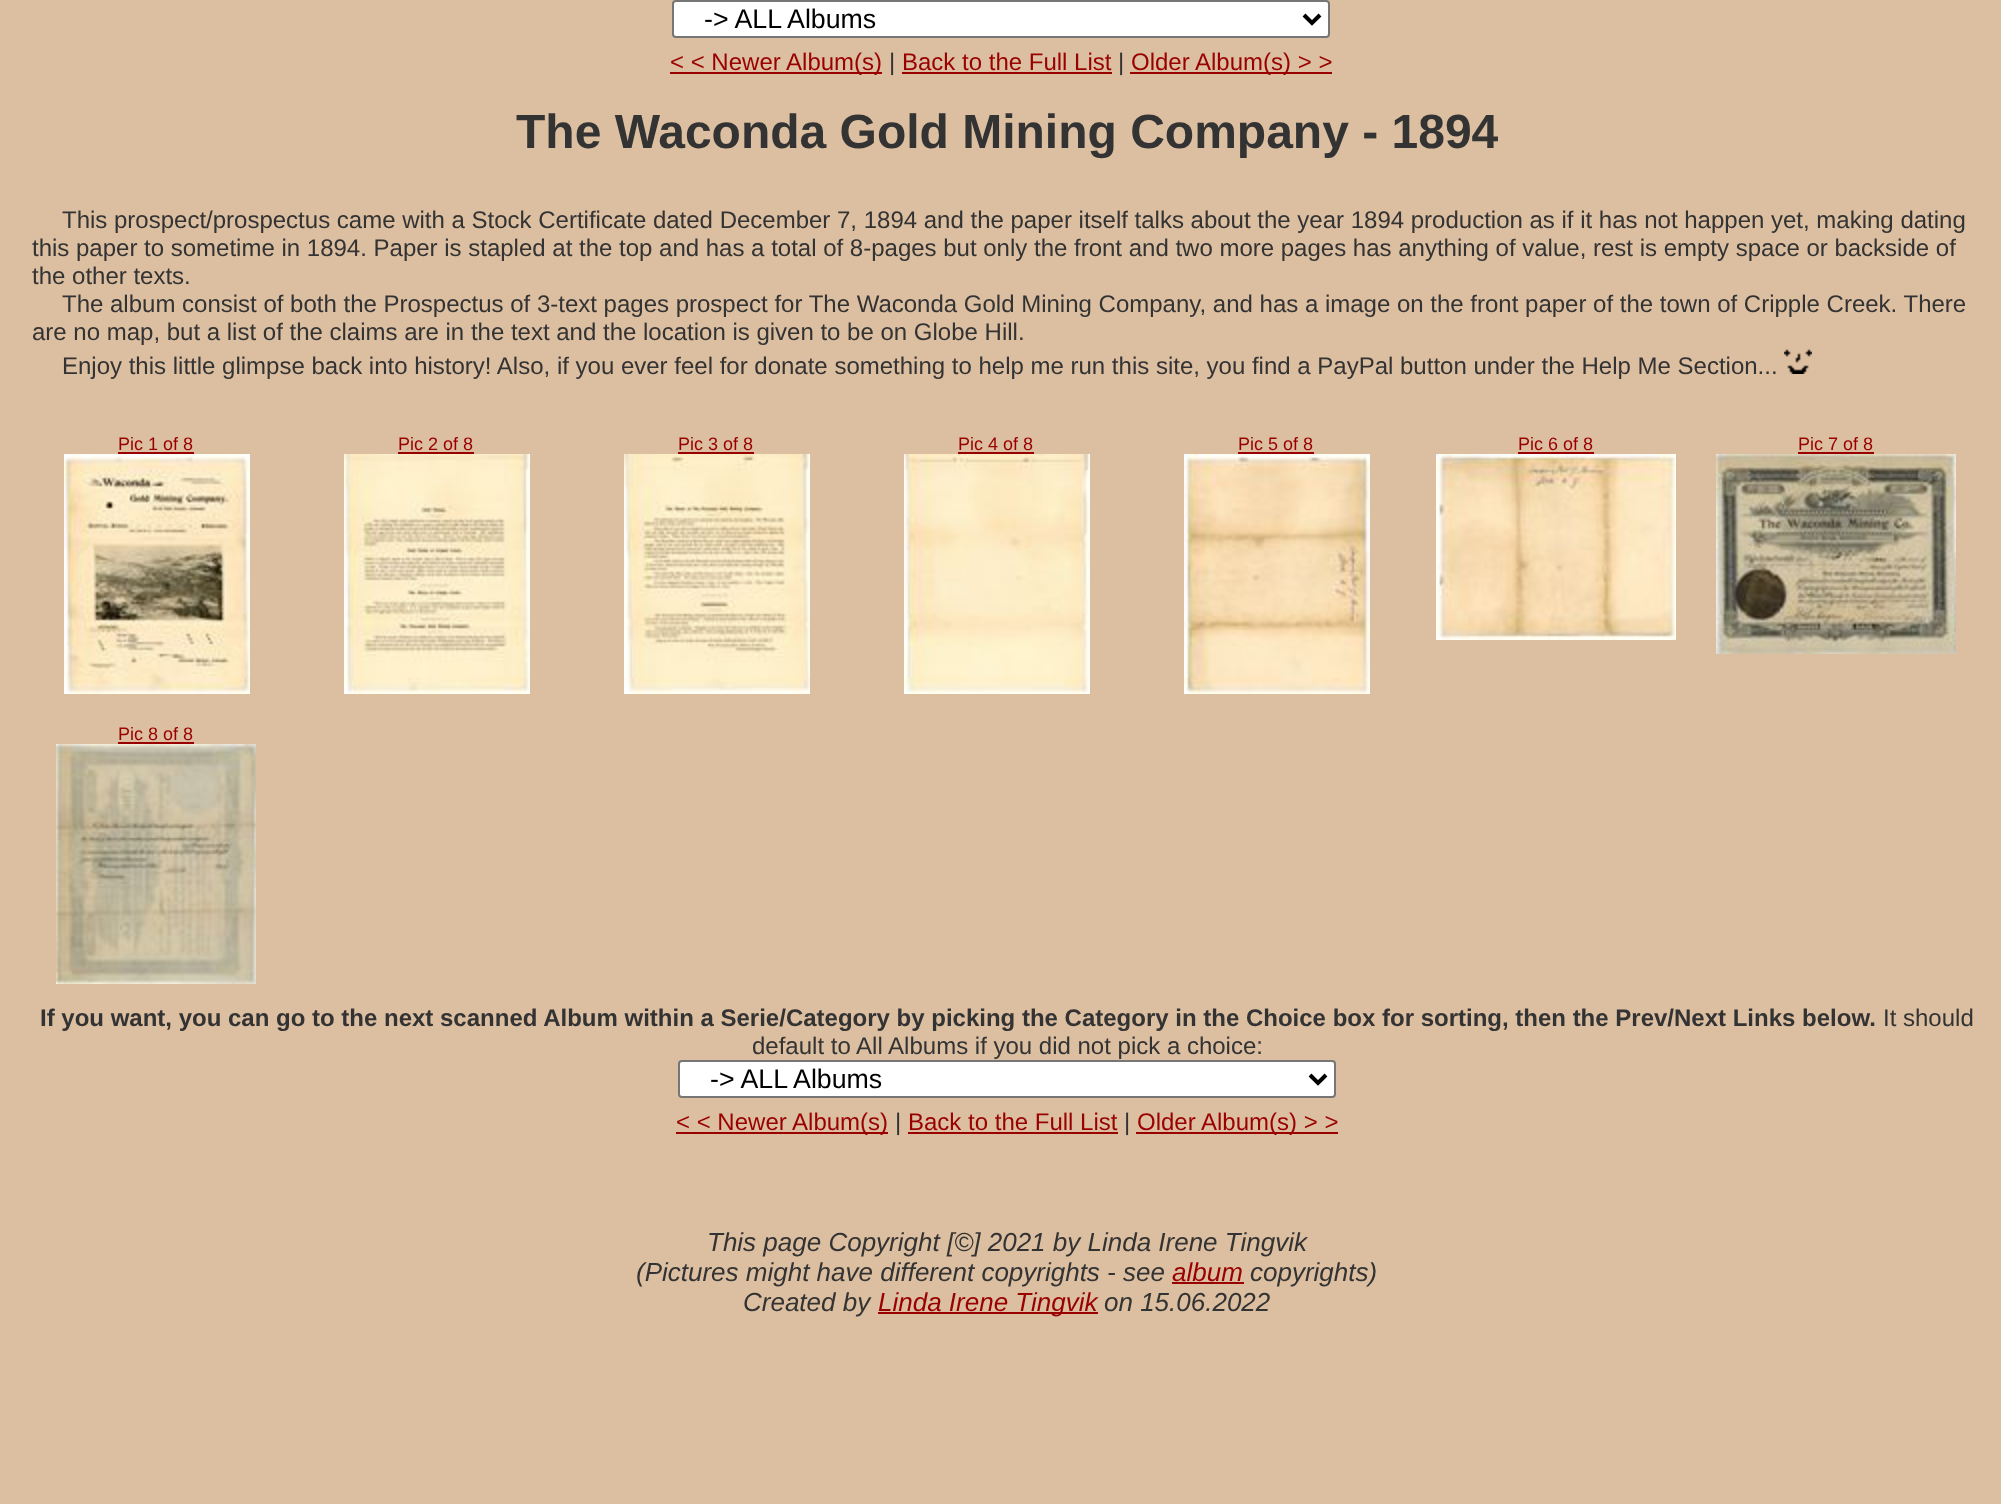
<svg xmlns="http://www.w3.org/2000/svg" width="2001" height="1504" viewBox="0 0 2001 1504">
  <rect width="100%" height="100%" fill="rgb(220,190,160)"/>
  <rect x="673" y="1" width="656" height="36" rx="3" fill="rgb(255,255,255)" stroke="rgb(118,118,118)" stroke-width="2"/>
  <path d="M1304 15L1312 23L1320 15" fill="none" stroke="rgb(0,0,0)" stroke-width="4"/>
  <text x="704" y="28" font-family="Liberation Sans" font-size="26.75" fill="rgb(0,0,0)">-&gt; ALL Albums</text>
  <rect x="670" y="72" width="212" height="2" fill="rgb(153,0,0)"/>
  <text x="670" y="70" font-family="Liberation Sans" font-size="24" fill="rgb(153,0,0)">&lt; &lt; Newer Album(s)</text>
  <text x="889" y="70" font-family="Liberation Sans" font-size="24" fill="rgb(51,51,51)">|</text>
  <text x="902" y="70" font-family="Liberation Sans" font-size="24" fill="rgb(153,0,0)">Back to the Full List</text>
  <rect x="902" y="72" width="210" height="2" fill="rgb(153,0,0)"/>
  <text x="1118" y="70" font-family="Liberation Sans" font-size="24" fill="rgb(51,51,51)">|</text>
  <rect x="1130" y="72" width="202" height="2" fill="rgb(153,0,0)"/>
  <text x="1131" y="70" font-family="Liberation Sans" font-size="24" fill="rgb(153,0,0)">Older Album(s) &gt; &gt;</text>
  <text x="516" y="148" font-family="Liberation Sans" font-size="48" font-weight="bold" fill="rgb(51,51,51)">The Waconda Gold Mining Company - 1894</text>
  <g font-family="Liberation Sans" font-size="24" fill="rgb(51,51,51)">
    <text x="62" y="228">This prospect/prospectus came with a Stock Certificate dated December 7, 1894 and the paper itself talks about the year 1894 production as if it has not happen yet, making dating</text>
    <text>
      <tspan x="32" y="256">this paper to sometime in 1894. Paper is stapled at the top and has a total of 8-pages but only the front and two more pages has anything of value, rest is empty space or backside of</tspan>
      <tspan x="32" y="284">the other texts.</tspan>
    </text>
    <text x="62" y="312">The album consist of both the Prospectus of 3-text pages prospect for The Waconda Gold Mining Company, and has a image on the front paper of the town of Cripple Creek. There</text>
    <text x="32" y="340">are no map, but a list of the claims are in the text and the location is given to be on Globe Hill.</text>
    <text x="62" y="374">Enjoy this little glimpse back into history! Also, if you ever feel for donate something to help me run this site, you find a PayPal button under the Help Me Section...</text>
  </g>
  <image x="1784" y="349" width="28" height="25" href="pic1.png"/>
  <text x="118" y="450" font-family="Liberation Sans" font-size="18" fill="rgb(153,0,0)">Pic 1 of 8</text>
  <rect x="118" y="452" width="76" height="2" fill="rgb(153,0,0)"/>
  <image x="64" y="454" width="186" height="240" href="pic2.png"/>
  <text x="398" y="450" font-family="Liberation Sans" font-size="18" fill="rgb(153,0,0)">Pic 2 of 8</text>
  <rect x="398" y="452" width="76" height="2" fill="rgb(153,0,0)"/>
  <image x="344" y="454" width="186" height="240" href="pic3.png"/>
  <text x="678" y="450" font-family="Liberation Sans" font-size="18" fill="rgb(153,0,0)">Pic 3 of 8</text>
  <rect x="678" y="452" width="76" height="2" fill="rgb(153,0,0)"/>
  <image x="624" y="454" width="186" height="240" href="pic4.png"/>
  <text x="958" y="450" font-family="Liberation Sans" font-size="18" fill="rgb(153,0,0)">Pic 4 of 8</text>
  <rect x="958" y="452" width="76" height="2" fill="rgb(153,0,0)"/>
  <image x="904" y="454" width="186" height="240" href="pic5.png"/>
  <text x="1238" y="450" font-family="Liberation Sans" font-size="18" fill="rgb(153,0,0)">Pic 5 of 8</text>
  <rect x="1238" y="452" width="76" height="2" fill="rgb(153,0,0)"/>
  <image x="1184" y="454" width="186" height="240" href="pic6.png"/>
  <text x="1518" y="450" font-family="Liberation Sans" font-size="18" fill="rgb(153,0,0)">Pic 6 of 8</text>
  <rect x="1518" y="452" width="76" height="2" fill="rgb(153,0,0)"/>
  <image x="1436" y="454" width="240" height="186" href="pic7.png"/>
  <text x="1798" y="450" font-family="Liberation Sans" font-size="18" fill="rgb(153,0,0)">Pic 7 of 8</text>
  <rect x="1798" y="452" width="76" height="2" fill="rgb(153,0,0)"/>
  <image x="1716" y="454" width="240" height="200" href="pic8.png"/>
  <text x="118" y="740" font-family="Liberation Sans" font-size="18" fill="rgb(153,0,0)">Pic 8 of 8</text>
  <rect x="118" y="742" width="76" height="2" fill="rgb(153,0,0)"/>
  <image x="56" y="744" width="200" height="240" href="pic9.png"/>
  <text x="40" y="1026" font-family="Liberation Sans" font-size="24" font-weight="bold" fill="rgb(51,51,51)">If you want, you can go to the next scanned Album within a Serie/Category by picking the Category in the Choice box for sorting, then the Prev/Next Links below.</text>
  <g font-family="Liberation Sans" font-size="24" fill="rgb(51,51,51)">
    <text x="1883" y="1026">It should</text>
    <text x="752" y="1054">default to All Albums if you did not pick a choice:</text>
  </g>
  <rect x="679" y="1061" width="656" height="36" rx="3" fill="rgb(255,255,255)" stroke="rgb(118,118,118)" stroke-width="2"/>
  <path d="M1310 1075L1318 1083L1326 1075" fill="none" stroke="rgb(0,0,0)" stroke-width="4"/>
  <text x="710" y="1088" font-family="Liberation Sans" font-size="26.75" fill="rgb(0,0,0)">-&gt; ALL Albums</text>
  <rect x="676" y="1132" width="212" height="2" fill="rgb(153,0,0)"/>
  <text x="676" y="1130" font-family="Liberation Sans" font-size="24" fill="rgb(153,0,0)">&lt; &lt; Newer Album(s)</text>
  <text x="895" y="1130" font-family="Liberation Sans" font-size="24" fill="rgb(51,51,51)">|</text>
  <text x="908" y="1130" font-family="Liberation Sans" font-size="24" fill="rgb(153,0,0)">Back to the Full List</text>
  <rect x="908" y="1132" width="210" height="2" fill="rgb(153,0,0)"/>
  <text x="1124" y="1130" font-family="Liberation Sans" font-size="24" fill="rgb(51,51,51)">|</text>
  <rect x="1136" y="1132" width="202" height="2" fill="rgb(153,0,0)"/>
  <text x="1137" y="1130" font-family="Liberation Sans" font-size="24" fill="rgb(153,0,0)">Older Album(s) &gt; &gt;</text>
  <g font-family="Liberation Sans" font-size="26" font-style="italic" fill="rgb(51,51,51)">
    <text x="707" y="1251">This page Copyright [©] 2021 by Linda Irene Tingvik</text>
    <text x="636" y="1281">(Pictures might have different copyrights - see</text>
  </g>
  <text x="1172" y="1281" font-family="Liberation Sans" font-size="26" font-style="italic" fill="rgb(153,0,0)">album</text>
  <rect x="1172" y="1282" width="72" height="2" fill="rgb(153,0,0)"/>
  <g font-family="Liberation Sans" font-size="26" font-style="italic" fill="rgb(51,51,51)">
    <text x="1250" y="1281">copyrights)</text>
    <text x="743" y="1311">Created by</text>
  </g>
  <rect x="878" y="1312" width="220" height="2" fill="rgb(153,0,0)"/>
  <text x="878" y="1311" font-family="Liberation Sans" font-size="26" font-style="italic" fill="rgb(153,0,0)">Linda Irene Tingvik</text>
  <text x="1104" y="1311" font-family="Liberation Sans" font-size="26" font-style="italic" fill="rgb(51,51,51)">on 15.06.2022</text>
</svg>
